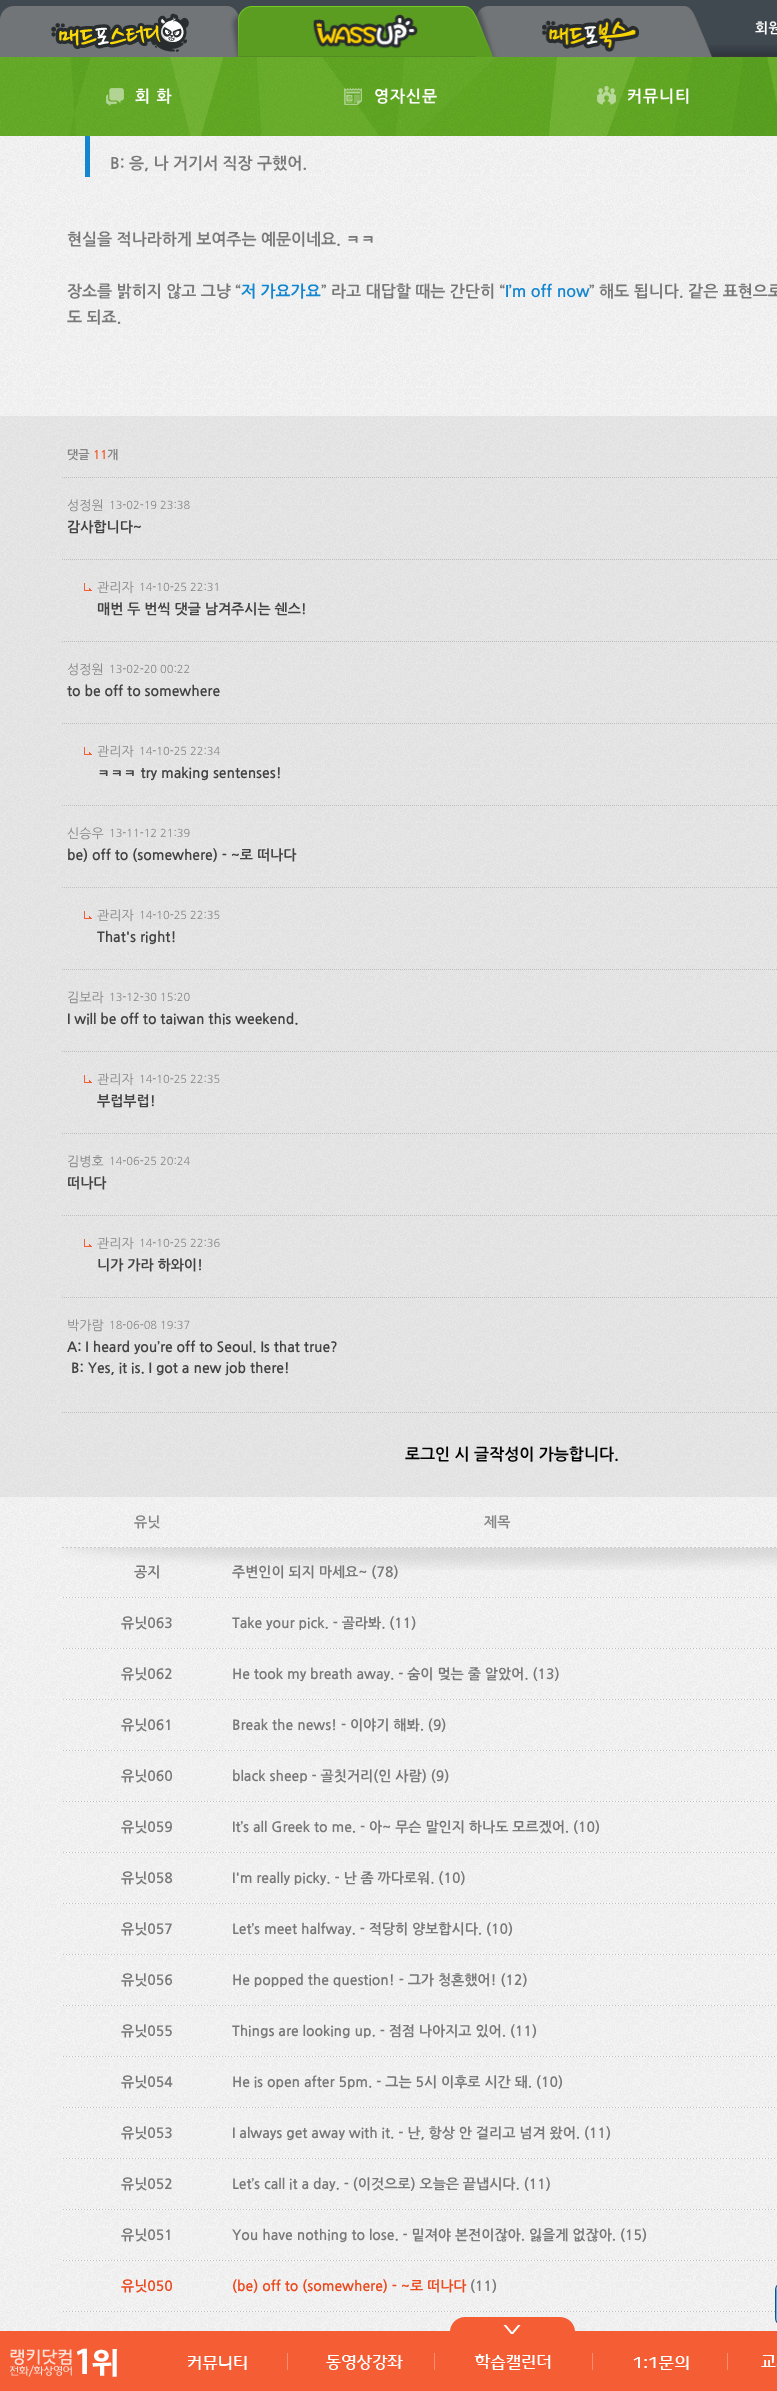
<svg xmlns="http://www.w3.org/2000/svg" width="777" height="2391" viewBox="0 0 777 2391">
  <rect width="100%" height="100%" fill="rgb(255,255,255)"/>
  <image x="0" y="396" width="777" height="1101" href="pic1.png"/>
  <rect x="0" y="0" width="777" height="45" fill="rgb(64,72,80)"/>
  <image x="238" y="45" width="539" height="12" href="pic2.png"/>
  <image x="0" y="6" width="238" height="51" href="pic3.png"/>
  <image x="238" y="6" width="238" height="51" href="pic4.png"/>
  <image x="476" y="6" width="237" height="51" href="pic5.png"/>
  <text x="755" y="33" font-family="NanumGothic" font-size="14" font-weight="bold" fill="rgb(255,255,255)">회원</text>
  <image x="0" y="57" width="777" height="79" href="pic6.png"/>
  <image x="106" y="88" width="18" height="18" href="pic7.png"/>
  <text x="135" y="102" font-family="NanumGothic" font-size="16" font-weight="bold" letter-spacing="1" fill="rgb(255,255,255)">회 화</text>
  <image x="344" y="88" width="18" height="17" href="pic8.png"/>
  <text x="374" y="102" font-family="NanumGothic" font-size="16" font-weight="bold" letter-spacing="1" fill="rgb(255,255,255)">영자신문</text>
  <image x="597" y="86" width="19" height="19" href="pic9.png"/>
  <text x="627" y="102" font-family="NanumGothic" font-size="16" font-weight="bold" letter-spacing="1" fill="rgb(255,255,255)">커뮤니티</text>
  <image x="0" y="136" width="777" height="260" href="pic10.png"/>
  <rect x="85" y="136" width="5" height="41" fill="rgb(19,134,209)"/>
  <g font-family="NanumGothic" font-size="16" font-weight="bold" fill="rgb(120,120,120)">
    <text x="110" y="169">B: 응, 나 거기서 직장 구했어.</text>
    <text x="67" y="245">현실을 적나라하게 보여주는 예문이네요. ㅋㅋ</text>
    <text x="67" y="297">장소를 밝히지 않고 그냥 “</text>
  </g>
  <text x="241" y="297" font-family="NanumGothic" font-size="16" font-weight="bold" fill="rgb(19,134,209)">저 가요가요</text>
  <text x="321" y="297" font-family="NanumGothic" font-size="16" font-weight="bold" fill="rgb(120,120,120)">” 라고 대답할 때는 간단히 “</text>
  <text x="505" y="297" font-family="NanumGothic" font-size="16" font-weight="bold" fill="rgb(19,134,209)">I’m off now</text>
  <g font-family="NanumGothic" font-size="16" font-weight="bold" fill="rgb(120,120,120)">
    <text x="589" y="297">” 해도 됩니다. 같은 표현으로</text>
    <text x="67" y="323">도 되죠.</text>
  </g>
  <rect x="0" y="416" width="777" height="1081" fill="rgba(180,180,180,0.2)"/>
  <text x="67" y="459" font-family="NanumGothic" font-size="12" font-weight="bold" fill="rgb(135,135,135)">댓글</text>
  <text x="93" y="459" font-family="NanumGothic" font-size="12" font-weight="bold" fill="rgb(245,93,52)">11</text>
  <text x="107" y="459" font-family="NanumGothic" font-size="12" font-weight="bold" fill="rgb(135,135,135)">개</text>
  <path d="M62 477.5H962" fill="none" stroke="rgb(192,191,187)" stroke-dasharray="1 1"/>
  <text x="67" y="510" font-family="NanumGothic" font-size="13" fill="rgb(135,135,135)">성정원</text>
  <text x="109" y="509" font-family="NanumGothic" font-size="11" fill="rgb(135,135,135)">13-02-19 23:38</text>
  <text x="67" y="532" font-family="NanumGothic" font-size="14" font-weight="bold" fill="rgb(66,66,66)">감사합니다~</text>
  <path d="M62 559.5H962" fill="none" stroke="rgb(192,191,187)" stroke-dasharray="1 1"/>
  <image x="84" y="583" width="8" height="8" href="pic11.png"/>
  <text x="97" y="592" font-family="NanumGothic" font-size="13" fill="rgb(135,135,135)">관리자</text>
  <text x="139" y="591" font-family="NanumGothic" font-size="11" fill="rgb(135,135,135)">14-10-25 22:31</text>
  <text x="97" y="614" font-family="NanumGothic" font-size="14" font-weight="bold" fill="rgb(66,66,66)">매번 두 번씩 댓글 남겨주시는 쉔스!</text>
  <path d="M62 641.5H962" fill="none" stroke="rgb(192,191,187)" stroke-dasharray="1 1"/>
  <text x="67" y="674" font-family="NanumGothic" font-size="13" fill="rgb(135,135,135)">성정원</text>
  <text x="109" y="673" font-family="NanumGothic" font-size="11" fill="rgb(135,135,135)">13-02-20 00:22</text>
  <text x="67" y="696" font-family="NanumGothic" font-size="14" font-weight="bold" fill="rgb(66,66,66)">to be off to somewhere</text>
  <path d="M62 723.5H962" fill="none" stroke="rgb(192,191,187)" stroke-dasharray="1 1"/>
  <image x="84" y="747" width="8" height="8" href="pic12.png"/>
  <text x="97" y="756" font-family="NanumGothic" font-size="13" fill="rgb(135,135,135)">관리자</text>
  <text x="139" y="755" font-family="NanumGothic" font-size="11" fill="rgb(135,135,135)">14-10-25 22:34</text>
  <text x="97" y="778" font-family="NanumGothic" font-size="14" font-weight="bold" fill="rgb(66,66,66)">ㅋㅋㅋ try making sentenses!</text>
  <path d="M62 805.5H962" fill="none" stroke="rgb(192,191,187)" stroke-dasharray="1 1"/>
  <text x="67" y="838" font-family="NanumGothic" font-size="13" fill="rgb(135,135,135)">신승우</text>
  <text x="109" y="837" font-family="NanumGothic" font-size="11" fill="rgb(135,135,135)">13-11-12 21:39</text>
  <text x="67" y="860" font-family="NanumGothic" font-size="14" font-weight="bold" fill="rgb(66,66,66)">be) off to (somewhere) - ~로 떠나다</text>
  <path d="M62 887.5H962" fill="none" stroke="rgb(192,191,187)" stroke-dasharray="1 1"/>
  <image x="84" y="911" width="8" height="8" href="pic13.png"/>
  <text x="97" y="920" font-family="NanumGothic" font-size="13" fill="rgb(135,135,135)">관리자</text>
  <text x="139" y="919" font-family="NanumGothic" font-size="11" fill="rgb(135,135,135)">14-10-25 22:35</text>
  <text x="97" y="942" font-family="NanumGothic" font-size="14" font-weight="bold" fill="rgb(66,66,66)">That's right!</text>
  <path d="M62 969.5H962" fill="none" stroke="rgb(192,191,187)" stroke-dasharray="1 1"/>
  <text x="67" y="1002" font-family="NanumGothic" font-size="13" fill="rgb(135,135,135)">김보라</text>
  <text x="109" y="1001" font-family="NanumGothic" font-size="11" fill="rgb(135,135,135)">13-12-30 15:20</text>
  <text x="67" y="1024" font-family="NanumGothic" font-size="14" font-weight="bold" fill="rgb(66,66,66)">I will be off to taiwan this weekend.</text>
  <path d="M62 1051.5H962" fill="none" stroke="rgb(192,191,187)" stroke-dasharray="1 1"/>
  <image x="84" y="1075" width="8" height="8" href="pic14.png"/>
  <text x="97" y="1084" font-family="NanumGothic" font-size="13" fill="rgb(135,135,135)">관리자</text>
  <text x="139" y="1083" font-family="NanumGothic" font-size="11" fill="rgb(135,135,135)">14-10-25 22:35</text>
  <text x="97" y="1106" font-family="NanumGothic" font-size="14" font-weight="bold" fill="rgb(66,66,66)">부럽부럽!</text>
  <path d="M62 1133.5H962" fill="none" stroke="rgb(192,191,187)" stroke-dasharray="1 1"/>
  <text x="67" y="1166" font-family="NanumGothic" font-size="13" fill="rgb(135,135,135)">김병호</text>
  <text x="109" y="1165" font-family="NanumGothic" font-size="11" fill="rgb(135,135,135)">14-06-25 20:24</text>
  <text x="67" y="1188" font-family="NanumGothic" font-size="14" font-weight="bold" fill="rgb(66,66,66)">떠나다</text>
  <path d="M62 1215.5H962" fill="none" stroke="rgb(192,191,187)" stroke-dasharray="1 1"/>
  <image x="84" y="1239" width="8" height="8" href="pic15.png"/>
  <text x="97" y="1248" font-family="NanumGothic" font-size="13" fill="rgb(135,135,135)">관리자</text>
  <text x="139" y="1247" font-family="NanumGothic" font-size="11" fill="rgb(135,135,135)">14-10-25 22:36</text>
  <text x="97" y="1270" font-family="NanumGothic" font-size="14" font-weight="bold" fill="rgb(66,66,66)">니가 가라 하와이!</text>
  <path d="M62 1297.5H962" fill="none" stroke="rgb(192,191,187)" stroke-dasharray="1 1"/>
  <text x="67" y="1330" font-family="NanumGothic" font-size="13" fill="rgb(135,135,135)">박가람</text>
  <text x="109" y="1329" font-family="NanumGothic" font-size="11" fill="rgb(135,135,135)">18-06-08 19:37</text>
  <g font-family="NanumGothic" font-size="14" font-weight="bold" fill="rgb(66,66,66)">
    <text x="67" y="1352">A: I heard you’re off to Seoul. Is that true?</text>
    <text x="71" y="1373">B: Yes, it is. I got a new job there!</text>
  </g>
  <path d="M62 1412.5H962" fill="none" stroke="rgb(192,191,187)" stroke-dasharray="1 1"/>
  <text x="405" y="1460" font-family="NanumGothic" font-size="16" font-weight="bold" fill="rgb(0,0,0)">로그인 시 글작성이 가능합니다.</text>
  <image x="0" y="1497" width="777" height="834" href="pic16.png"/>
  <g font-family="NanumGothic" font-size="14" font-weight="bold" fill="rgb(135,135,135)">
    <text x="134" y="1527">유닛</text>
    <text x="484" y="1527">제목</text>
  </g>
  <image x="62" y="1547" width="715" height="23" href="pic17.png"/>
  <g font-family="NanumGothic" font-size="14" font-weight="bold" fill="rgb(120,120,120)">
    <text x="134" y="1577">공지</text>
    <text x="232" y="1577">주변인이 되지 마세요~ (78)</text>
  </g>
  <image x="62" y="1597" width="715" height="1" href="pic18.png"/>
  <g font-family="NanumGothic" font-size="14" font-weight="bold" fill="rgb(120,120,120)">
    <text x="121" y="1628">유닛063</text>
    <text x="232" y="1628">Take your pick. - 골라봐. (11)</text>
  </g>
  <image x="62" y="1648" width="715" height="1" href="pic18.png"/>
  <g font-family="NanumGothic" font-size="14" font-weight="bold" fill="rgb(120,120,120)">
    <text x="121" y="1679">유닛062</text>
    <text x="232" y="1679">He took my breath away. - 숨이 멎는 줄 알았어. (13)</text>
  </g>
  <image x="62" y="1699" width="715" height="1" href="pic18.png"/>
  <g font-family="NanumGothic" font-size="14" font-weight="bold" fill="rgb(120,120,120)">
    <text x="121" y="1730">유닛061</text>
    <text x="232" y="1730">Break the news! - 이야기 해봐. (9)</text>
  </g>
  <image x="62" y="1750" width="715" height="1" href="pic18.png"/>
  <g font-family="NanumGothic" font-size="14" font-weight="bold" fill="rgb(120,120,120)">
    <text x="121" y="1781">유닛060</text>
    <text x="232" y="1781">black sheep - 골칫거리(인 사람) (9)</text>
  </g>
  <image x="62" y="1801" width="715" height="1" href="pic18.png"/>
  <g font-family="NanumGothic" font-size="14" font-weight="bold" fill="rgb(120,120,120)">
    <text x="121" y="1832">유닛059</text>
    <text x="232" y="1832">It’s all Greek to me. - 아~ 무슨 말인지 하나도 모르겠어. (10)</text>
  </g>
  <image x="62" y="1852" width="715" height="1" href="pic18.png"/>
  <g font-family="NanumGothic" font-size="14" font-weight="bold" fill="rgb(120,120,120)">
    <text x="121" y="1883">유닛058</text>
    <text x="232" y="1883">I'm really picky. - 난 좀 까다로워. (10)</text>
  </g>
  <image x="62" y="1903" width="715" height="1" href="pic18.png"/>
  <g font-family="NanumGothic" font-size="14" font-weight="bold" fill="rgb(120,120,120)">
    <text x="121" y="1934">유닛057</text>
    <text x="232" y="1934">Let’s meet halfway. - 적당히 양보합시다. (10)</text>
  </g>
  <image x="62" y="1954" width="714" height="1" href="pic19.png"/>
  <g font-family="NanumGothic" font-size="14" font-weight="bold" fill="rgb(120,120,120)">
    <text x="121" y="1985">유닛056</text>
    <text x="232" y="1985">He popped the question! - 그가 청혼했어! (12)</text>
  </g>
  <image x="62" y="2005" width="714" height="1" href="pic19.png"/>
  <g font-family="NanumGothic" font-size="14" font-weight="bold" fill="rgb(120,120,120)">
    <text x="121" y="2036">유닛055</text>
    <text x="232" y="2036">Things are looking up. - 점점 나아지고 있어. (11)</text>
  </g>
  <image x="63" y="2056" width="714" height="1" href="pic20.png"/>
  <g font-family="NanumGothic" font-size="14" font-weight="bold" fill="rgb(120,120,120)">
    <text x="121" y="2087">유닛054</text>
    <text x="232" y="2087">He is open after 5pm. - 그는 5시 이후로 시간 돼. (10)</text>
  </g>
  <image x="62" y="2107" width="715" height="1" href="pic18.png"/>
  <g font-family="NanumGothic" font-size="14" font-weight="bold" fill="rgb(120,120,120)">
    <text x="121" y="2138">유닛053</text>
    <text x="232" y="2138">I always get away with it. - 난, 항상 안 걸리고 넘겨 왔어. (11)</text>
  </g>
  <image x="62" y="2158" width="713" height="1" href="pic21.png"/>
  <g font-family="NanumGothic" font-size="14" font-weight="bold" fill="rgb(120,120,120)">
    <text x="121" y="2189">유닛052</text>
    <text x="232" y="2189">Let’s call it a day. - (이것으로) 오늘은 끝냅시다. (11)</text>
  </g>
  <image x="62" y="2209" width="715" height="1" href="pic18.png"/>
  <g font-family="NanumGothic" font-size="14" font-weight="bold" fill="rgb(120,120,120)">
    <text x="121" y="2240">유닛051</text>
    <text x="232" y="2240">You have nothing to lose. - 밑져야 본전이잖아. 잃을게 없잖아. (15)</text>
  </g>
  <image x="62" y="2260" width="715" height="1" href="pic18.png"/>
  <g font-family="NanumGothic" font-size="14" font-weight="bold" fill="rgb(235,74,31)">
    <text x="121" y="2291">유닛050</text>
    <text x="232" y="2291">(be) off to (somewhere) - ~로 떠나다</text>
  </g>
  <text x="470" y="2291" font-family="NanumGothic" font-size="14" font-weight="bold" fill="rgb(120,120,120)">(11)</text>
  <image x="62" y="2311" width="713" height="1" href="pic21.png"/>
  <rect x="0" y="2331" width="777" height="60" fill="rgb(245,93,52)"/>
  <image x="450" y="2317" width="125" height="14" href="pic22.png"/>
  <image x="503" y="2325" width="18" height="9" href="pic23.png"/>
  <image x="775" y="2284" width="2" height="40" href="pic24.png"/>
  <image x="10" y="2348" width="107" height="29" href="pic25.png"/>
  <image x="187" y="2356" width="60" height="14" href="pic26.png"/>
  <rect x="287" y="2353" width="1" height="17" fill="rgb(248,142,113)"/>
  <image x="326" y="2355" width="77" height="15" href="pic27.png"/>
  <rect x="434" y="2353" width="1" height="17" fill="rgb(248,142,113)"/>
  <image x="474" y="2354" width="77" height="16" href="pic28.png"/>
  <rect x="592" y="2353" width="1" height="17" fill="rgb(248,142,113)"/>
  <image x="633" y="2356" width="56" height="14" href="pic29.png"/>
  <rect x="727" y="2353" width="1" height="17" fill="rgb(248,142,113)"/>
  <image x="761" y="2355" width="16" height="12" href="pic30.png"/>
</svg>
